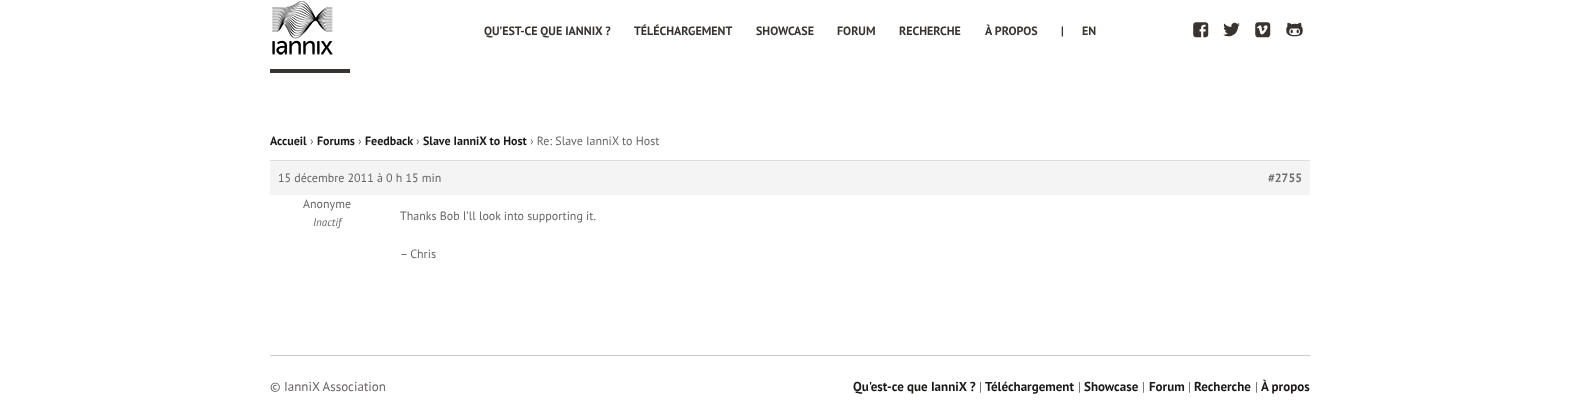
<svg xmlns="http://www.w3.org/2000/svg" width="1580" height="417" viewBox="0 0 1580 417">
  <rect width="100%" height="100%" fill="rgb(255,255,255)"/>
  <image x="272" y="1" width="61" height="54" href="pic1.png"/>
  <g font-family="PT Sans" font-size="12" font-weight="bold" fill="rgb(55,52,50)">
    <text x="484" y="35">QU’EST-CE QUE IANNIX ?</text>
    <text x="634" y="35">TÉLÉCHARGEMENT</text>
    <text x="756" y="35">SHOWCASE</text>
    <text x="837" y="35">FORUM</text>
    <text x="899" y="35">RECHERCHE</text>
    <text x="985" y="35">À PROPOS</text>
    <text x="1061" y="35" xml:space="preserve">|      EN</text>
  </g>
  <g font-family="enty" font-size="15" font-weight="500" fill="rgb(55,52,50)">
    <text x="1193" y="35">F</text>
    <text x="1223" y="35">T</text>
    <text x="1255" y="35">V</text>
    <text x="1286" y="35">H</text>
  </g>
  <rect x="270" y="69" width="80" height="4" fill="rgb(55,52,50)"/>
  <text x="270" y="145" font-family="PT Sans" font-size="12" font-weight="bold" fill="rgb(28,26,25)">Accueil</text>
  <text x="310" y="145" font-family="PT Sans" font-size="12" fill="rgb(105,102,101)">›</text>
  <text x="317" y="145" font-family="PT Sans" font-size="12" font-weight="bold" fill="rgb(28,26,25)">Forums</text>
  <text x="358" y="145" font-family="PT Sans" font-size="12" fill="rgb(105,102,101)">›</text>
  <text x="365" y="145" font-family="PT Sans" font-size="12" font-weight="bold" fill="rgb(28,26,25)">Feedback</text>
  <text x="416" y="145" font-family="PT Sans" font-size="12" fill="rgb(105,102,101)">›</text>
  <text x="423" y="145" font-family="PT Sans" font-size="12" font-weight="bold" fill="rgb(28,26,25)">Slave IanniX to Host</text>
  <text x="530" y="145" font-family="PT Sans" font-size="12" fill="rgb(105,102,101)">› Re: Slave IanniX to Host</text>
  <rect x="270" y="161" width="1040" height="34" fill="rgb(244,244,244)"/>
  <rect x="270" y="160" width="1040" height="1" fill="rgb(221,221,221)"/>
  <text x="278" y="182" font-family="PT Sans" font-size="12" fill="rgb(105,102,101)">15 décembre 2011 à 0 h 15 min</text>
  <text x="1268" y="182" font-family="PT Sans" font-size="12" font-weight="bold" fill="rgb(112,112,112)">#2755</text>
  <text x="303" y="208" font-family="PT Sans" font-size="12" fill="rgb(105,102,101)">Anonyme</text>
  <text x="313" y="226" font-family="PT Sans" font-size="11" font-style="italic" fill="rgb(105,102,101)">Inactif</text>
  <g font-family="PT Sans" font-size="12" fill="rgb(105,102,101)">
    <text x="400" y="220">Thanks Bob I’ll look into supporting it.</text>
    <text x="400" y="258">– Chris</text>
  </g>
  <rect x="270" y="355" width="1040" height="1" fill="rgb(205,204,203)"/>
  <text x="270" y="391" font-family="PT Sans" font-size="13" fill="rgb(105,102,101)">© IanniX Association</text>
  <text x="853" y="391" font-family="PT Sans" font-size="13" font-weight="bold" fill="rgb(28,26,25)">Qu'est-ce que IanniX ?</text>
  <text x="979" y="391" font-family="PT Sans" font-size="13" fill="rgb(105,102,101)">|</text>
  <text x="985" y="391" font-family="PT Sans" font-size="13" font-weight="bold" fill="rgb(28,26,25)">Téléchargement</text>
  <text x="1078" y="391" font-family="PT Sans" font-size="13" fill="rgb(105,102,101)">|</text>
  <text x="1084" y="391" font-family="PT Sans" font-size="13" font-weight="bold" fill="rgb(28,26,25)">Showcase</text>
  <text x="1142" y="391" font-family="PT Sans" font-size="13" fill="rgb(105,102,101)">|</text>
  <text x="1149" y="391" font-family="PT Sans" font-size="13" font-weight="bold" fill="rgb(28,26,25)">Forum</text>
  <text x="1188" y="391" font-family="PT Sans" font-size="13" fill="rgb(105,102,101)">|</text>
  <text x="1194" y="391" font-family="PT Sans" font-size="13" font-weight="bold" fill="rgb(28,26,25)">Recherche</text>
  <text x="1255" y="391" font-family="PT Sans" font-size="13" fill="rgb(105,102,101)">|</text>
  <text x="1261" y="391" font-family="PT Sans" font-size="13" font-weight="bold" fill="rgb(28,26,25)">À propos</text>
</svg>
